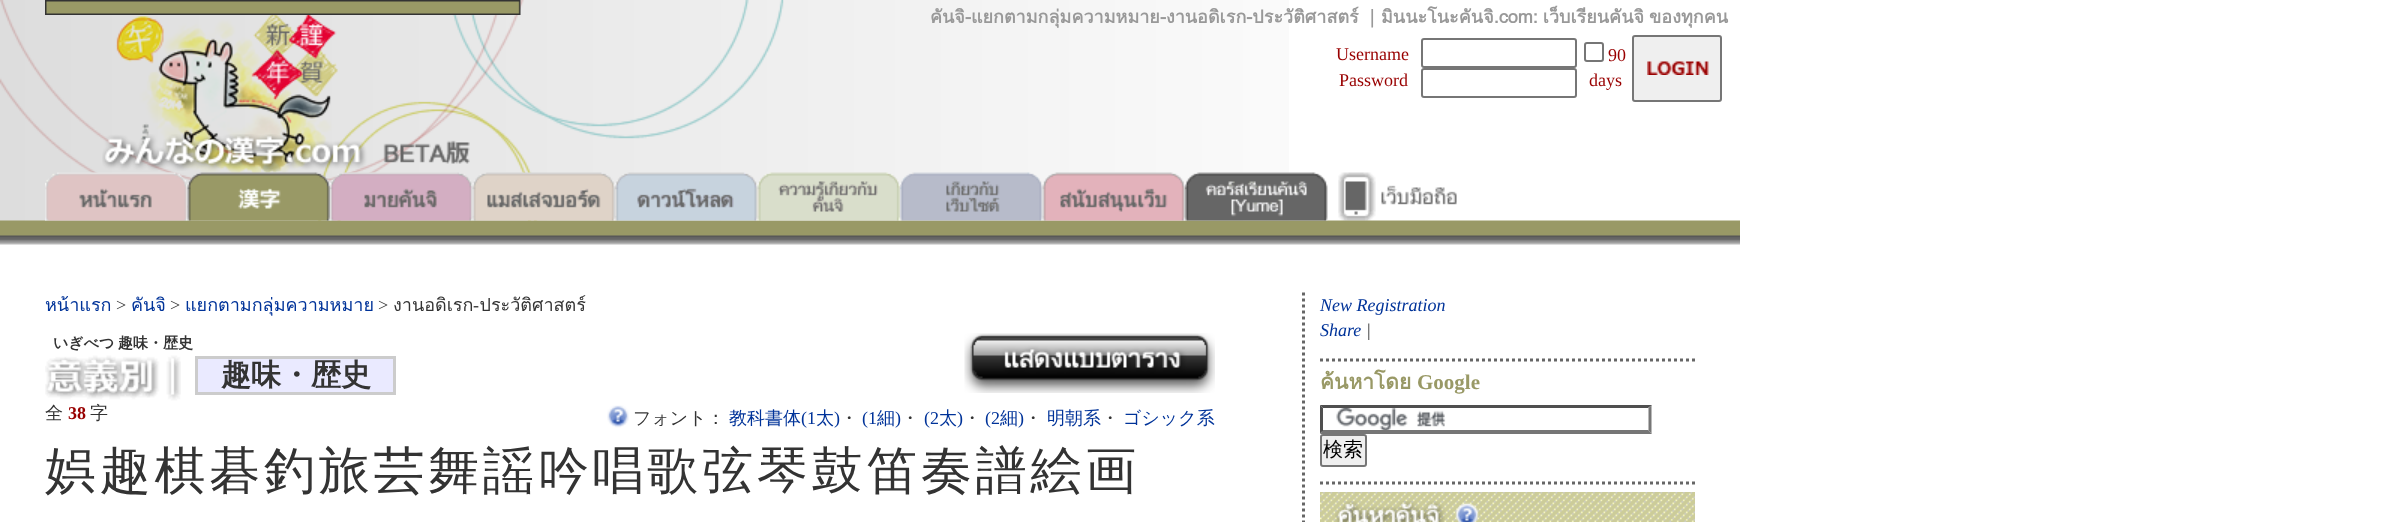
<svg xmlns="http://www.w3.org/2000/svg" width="2397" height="522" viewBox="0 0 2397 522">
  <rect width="100%" height="100%" fill="rgb(255,255,255)"/>
  <image x="0" y="0" width="1289" height="221" href="pic1.png"/>
  <image x="45" y="0" width="476" height="15" href="pic2.png"/>
  <image x="102" y="134" width="368" height="37" href="pic3.png"/>
  <text x="930" y="23" font-family="Loma" font-size="18" font-weight="bold" fill="rgb(153,153,153)">คันจิ-แยกตามกลุ่มความหมาย-งานอดิเรก-ประวัติศาสตร์</text>
  <text x="1363" y="23" font-family="WenQuanYi Zen Hei" font-size="18" font-weight="bold" fill="rgb(153,153,153)">｜</text>
  <text x="1381" y="23" word-spacing="-1" font-family="Loma" font-size="18" font-weight="bold" fill="rgb(153,153,153)">มินนะโนะคันจิ.com: เว็บเรียนคันจิ ของทุกคน</text>
  <g font-family="Liberation Serif" font-size="18" fill="rgb(153,0,0)">
    <text x="1336" y="60">Username</text>
    <text x="1339" y="86">Password</text>
  </g>
  <rect x="1422" y="39" width="154" height="28" rx="2" fill="none" stroke="rgb(118,118,118)" stroke-width="2"/>
  <rect x="1422" y="69" width="154" height="28" rx="2" fill="none" stroke="rgb(118,118,118)" stroke-width="2"/>
  <rect x="1585" y="43" width="18" height="18" rx="2" fill="none" stroke="rgb(118,118,118)" stroke-width="2"/>
  <g font-family="Liberation Serif" font-size="18" fill="rgb(153,0,0)">
    <text x="1608" y="61">90</text>
    <text x="1589" y="86">days</text>
  </g>
  <rect x="1633" y="36" width="88" height="65" rx="2" fill="rgb(239,239,239)" stroke="rgb(118,118,118)" stroke-width="2"/>
  <image x="1647" y="61" width="62" height="14" href="pic4.png"/>
  <image x="0" y="220" width="1740" height="25" href="pic5.png"/>
  <image x="45" y="172" width="143" height="49" href="pic6.png"/>
  <image x="187" y="172" width="143" height="49" href="pic7.png"/>
  <image x="330" y="172" width="143" height="49" href="pic8.png"/>
  <image x="472" y="172" width="143" height="49" href="pic9.png"/>
  <image x="615" y="172" width="143" height="49" href="pic10.png"/>
  <image x="757" y="172" width="143" height="49" href="pic11.png"/>
  <image x="900" y="172" width="143" height="49" href="pic12.png"/>
  <image x="1042" y="172" width="143" height="49" href="pic13.png"/>
  <image x="1185" y="172" width="143" height="49" href="pic14.png"/>
  <image x="1338" y="172" width="119" height="49" href="pic15.png"/>
  <text x="45" y="311" font-family="Loma" font-size="18" fill="rgb(0,51,153)">หน้าแรก</text>
  <text x="116" y="311" font-family="Liberation Serif" font-size="18" fill="rgb(51,51,51)">&gt;</text>
  <text x="131" y="311" font-family="Loma" font-size="18" fill="rgb(0,51,153)">คันจิ</text>
  <text x="170" y="311" font-family="Liberation Serif" font-size="18" fill="rgb(51,51,51)">&gt;</text>
  <text x="185" y="311" font-family="Loma" font-size="18" fill="rgb(0,51,153)">แยกตามกลุ่มความหมาย</text>
  <text x="378" y="311" font-family="Liberation Serif" font-size="18" fill="rgb(51,51,51)">&gt;</text>
  <text x="393" y="311" font-family="Loma" font-size="18" fill="rgb(51,51,51)">งานอดิเรก ประวัติศาสตร์</text>
  <text x="473" y="311" font-family="Liberation Serif" font-size="18" fill="rgb(51,51,51)">-</text>
  <text x="53" y="348" word-spacing="-1" font-family="WenQuanYi Zen Hei" font-size="15" font-weight="bold" fill="rgb(51,51,51)">いぎべつ 趣味・歴史</text>
  <image x="964" y="333" width="251" height="60" href="pic16.png"/>
  <image x="45" y="355" width="136" height="46" href="pic17.png"/>
  <rect x="196.5" y="357.5" width="198" height="36" fill="rgb(234,234,255)" stroke="rgb(204,204,204)" stroke-width="3"/>
  <text x="221" y="385" font-family="WenQuanYi Zen Hei" font-size="30" font-weight="bold" fill="rgb(51,51,51)">趣味・歴史</text>
  <text x="45" y="419" font-family="WenQuanYi Zen Hei" font-size="18" font-weight="500" fill="rgb(51,51,51)">全</text>
  <text x="68" y="419" font-family="Liberation Serif" font-size="18" font-weight="bold" fill="rgb(153,0,0)">38</text>
  <text x="90" y="419" font-family="WenQuanYi Zen Hei" font-size="18" font-weight="500" fill="rgb(51,51,51)">字</text>
  <image x="607" y="405" width="22" height="23" href="pic18.png"/>
  <text x="633" y="424" font-family="WenQuanYi Zen Hei" font-size="18" font-weight="500" fill="rgb(51,51,51)">フォント：</text>
  <text x="729" y="424" font-family="WenQuanYi Zen Hei" font-size="18" font-weight="500" fill="rgb(0,51,153)">教科書体</text>
  <text x="801" y="424" font-family="Liberation Serif" font-size="18" fill="rgb(0,51,153)">(1</text>
  <text x="816" y="424" font-family="WenQuanYi Zen Hei" font-size="18" font-weight="500" fill="rgb(0,51,153)">太</text>
  <text x="834" y="424" font-family="Liberation Serif" font-size="18" fill="rgb(0,51,153)">)</text>
  <text x="840" y="424" font-family="WenQuanYi Zen Hei" font-size="18" font-weight="500" fill="rgb(51,51,51)">・</text>
  <text x="862" y="424" font-family="Liberation Serif" font-size="18" fill="rgb(0,51,153)">(1</text>
  <text x="877" y="424" font-family="WenQuanYi Zen Hei" font-size="18" font-weight="500" fill="rgb(0,51,153)">細</text>
  <text x="895" y="424" font-family="Liberation Serif" font-size="18" fill="rgb(0,51,153)">)</text>
  <text x="901" y="424" font-family="WenQuanYi Zen Hei" font-size="18" font-weight="500" fill="rgb(51,51,51)">・</text>
  <text x="924" y="424" font-family="Liberation Serif" font-size="18" fill="rgb(0,51,153)">(2</text>
  <text x="939" y="424" font-family="WenQuanYi Zen Hei" font-size="18" font-weight="500" fill="rgb(0,51,153)">太</text>
  <text x="957" y="424" font-family="Liberation Serif" font-size="18" fill="rgb(0,51,153)">)</text>
  <text x="963" y="424" font-family="WenQuanYi Zen Hei" font-size="18" font-weight="500" fill="rgb(51,51,51)">・</text>
  <text x="985" y="424" font-family="Liberation Serif" font-size="18" fill="rgb(0,51,153)">(2</text>
  <text x="1000" y="424" font-family="WenQuanYi Zen Hei" font-size="18" font-weight="500" fill="rgb(0,51,153)">細</text>
  <text x="1018" y="424" font-family="Liberation Serif" font-size="18" fill="rgb(0,51,153)">)</text>
  <text x="1024" y="424" font-family="WenQuanYi Zen Hei" font-size="18" font-weight="500" fill="rgb(51,51,51)">・</text>
  <text x="1047" y="424" font-family="WenQuanYi Zen Hei" font-size="18" font-weight="500" fill="rgb(0,51,153)">明朝系</text>
  <text x="1101" y="424" font-family="WenQuanYi Zen Hei" font-size="18" font-weight="500" fill="rgb(51,51,51)">・</text>
  <text x="1123" y="424" font-family="WenQuanYi Zen Hei" font-size="18" font-weight="500" fill="rgb(0,51,153)">ゴシック系</text>
  <text x="45" y="488" font-family="WenQuanYi Zen Hei" font-size="51" font-weight="500" letter-spacing="3.75" fill="rgb(51,51,51)">娯趣棋碁釣旅芸舞謡吟唱歌弦琴鼓笛奏譜絵画</text>
  <path d="M1303.5 292.5V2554.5" fill="none" stroke="rgb(102,102,102)" stroke-width="3" stroke-dasharray="3 3"/>
  <path d="M1320 360H1695" fill="none" stroke="rgb(102,102,102)" stroke-width="3" stroke-dasharray="3 3"/>
  <g font-family="Liberation Serif" font-size="18" font-style="italic" fill="rgb(0,51,153)">
    <text>
      <tspan x="1320" y="311">New Registration</tspan>
      <tspan x="1320" y="336">Share</tspan>
    </text>
  </g>
  <text x="1366" y="336" font-family="Liberation Serif" font-size="18" font-style="italic" fill="rgb(51,51,51)">|</text>
  <path d="M1320 483H1695" fill="none" stroke="rgb(102,102,102)" stroke-width="3" stroke-dasharray="3 3"/>
  <text x="1320" y="389" font-family="Loma" font-size="21" font-weight="bold" fill="rgb(153,153,102)">ค้นหาโดย</text>
  <text x="1417" y="389" font-family="Liberation Serif" font-size="21" font-weight="bold" fill="rgb(153,153,102)">Google</text>
  <image x="1336" y="408" width="110" height="22" href="pic19.png"/>
  <path d="M1320 405H1652L1648 408H1323Z" fill="rgb(79,79,79)"/>
  <path d="M1651.5 405V433.5L1648.5 430.5V408Z" fill="rgb(118,118,118)"/>
  <path d="M1652 434H1320L1323 430H1648Z" fill="rgb(118,118,118)"/>
  <path d="M1320 433.5V405L1323 408V430.5Z" fill="rgb(79,79,79)"/>
  <rect x="1321" y="435" width="45" height="31" rx="2" fill="rgb(239,239,239)" stroke="rgb(118,118,118)" stroke-width="2"/>
  <text x="1323" y="456" font-family="WenQuanYi Zen Hei" font-size="20" font-weight="500" fill="rgb(0,0,0)">検索</text>
  <image x="1320" y="492" width="375" height="30" href="pic20.png"/>
  <image x="1335" y="501" width="110" height="21" href="pic21.png"/>
  <image x="1455" y="502" width="24" height="20" href="pic22.png"/>
</svg>
